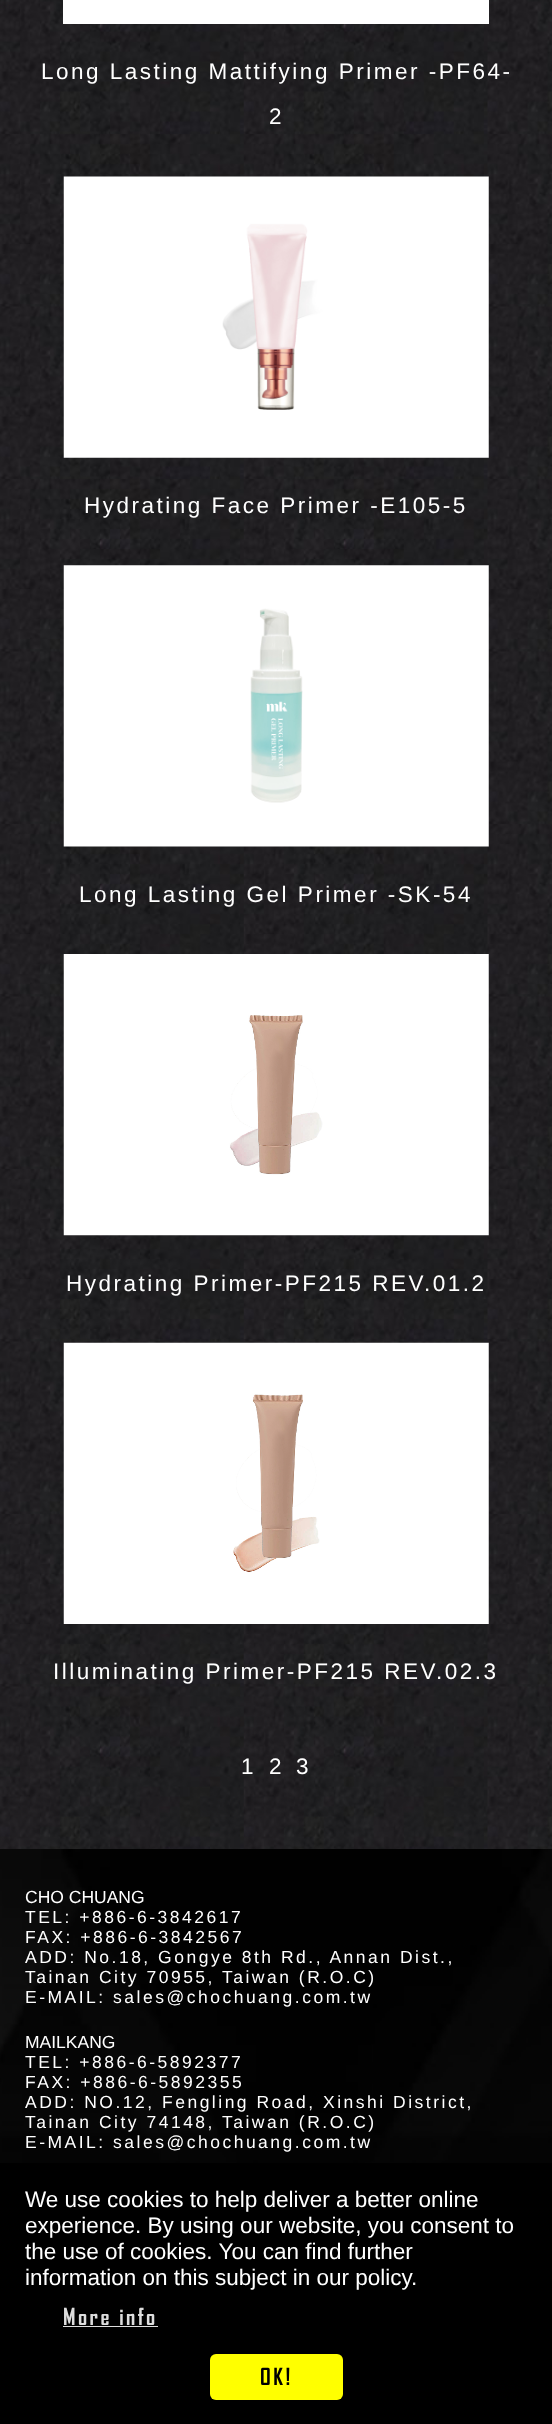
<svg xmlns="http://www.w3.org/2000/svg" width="552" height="2424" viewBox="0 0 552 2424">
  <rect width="100%" height="100%" fill="rgb(255,255,255)"/>
  <image x="0" y="0" width="552" height="1849" href="pic1.png"/>
  <rect x="63" y="0" width="426" height="24" fill="rgb(255,255,255)"/>
  <g font-family="Liberation Sans" font-size="22.5" letter-spacing="2.5" fill="rgb(255,255,255)">
    <text x="41" y="79">Long Lasting Mattifying Primer -PF64-</text>
    <text x="269" y="124">2</text>
  </g>
  <image x="63" y="176" width="426" height="282" href="pic2.png"/>
  <text x="84" y="513" font-family="Liberation Sans" font-size="22.5" letter-spacing="2.5" fill="rgb(255,255,255)">Hydrating Face Primer -E105-5</text>
  <image x="63" y="565" width="426" height="282" href="pic3.png"/>
  <text x="79" y="902" font-family="Liberation Sans" font-size="22.5" letter-spacing="2.5" fill="rgb(255,255,255)">Long Lasting Gel Primer -SK-54</text>
  <image x="63" y="954" width="426" height="282" href="pic4.png"/>
  <text x="66" y="1291" font-family="Liberation Sans" font-size="22.5" letter-spacing="2.5" fill="rgb(255,255,255)">Hydrating Primer-PF215 REV.01.2</text>
  <image x="63" y="1342" width="426" height="282" href="pic5.png"/>
  <g font-family="Liberation Sans" font-size="22.5" letter-spacing="2.5" fill="rgb(255,255,255)">
    <text x="53" y="1679">Illuminating Primer-PF215 REV.02.3</text>
    <text x="241" y="1774">1</text>
    <text x="269" y="1774">2</text>
    <text x="296" y="1774">3</text>
  </g>
  <image x="0" y="1849" width="552" height="314" href="pic6.png"/>
  <text x="25" y="1903" font-family="Liberation Sans" font-size="17.5" fill="rgb(255,255,255)">CHO CHUANG</text>
  <g font-family="Liberation Sans" font-size="17.5" letter-spacing="2.5" fill="rgb(255,255,255)">
    <text>
      <tspan x="25" y="1923">TEL: +886-6-3842617</tspan>
      <tspan x="25" y="1943">FAX: +886-6-3842567</tspan>
      <tspan x="25" y="1963">ADD: No.18, Gongye 8th Rd., Annan Dist.,</tspan>
      <tspan x="25" y="1983">Tainan City 70955, Taiwan (R.O.C)</tspan>
      <tspan x="25" y="2003">E-MAIL: sales@chochuang.com.tw</tspan>
    </text>
  </g>
  <text x="25" y="2048" font-family="Liberation Sans" font-size="17.5" fill="rgb(255,255,255)">MAILKANG</text>
  <g font-family="Liberation Sans" font-size="17.5" letter-spacing="2.5" fill="rgb(255,255,255)">
    <text>
      <tspan x="25" y="2068">TEL: +886-6-5892377</tspan>
      <tspan x="25" y="2088">FAX: +886-6-5892355</tspan>
      <tspan x="25" y="2108">ADD: NO.12, Fengling Road, Xinshi District,</tspan>
      <tspan x="25" y="2128">Tainan City 74148, Taiwan (R.O.C)</tspan>
      <tspan x="25" y="2148">E-MAIL: sales@chochuang.com.tw</tspan>
    </text>
  </g>
  <rect x="0" y="2163" width="552" height="261" fill="rgb(0,0,0)"/>
  <g font-family="Liberation Sans" font-size="22.5" fill="rgb(255,255,255)">
    <text>
      <tspan x="25" y="2207">We use cookies to help deliver a better online</tspan>
      <tspan x="25" y="2233">experience. By using our website, you consent to</tspan>
      <tspan x="25" y="2259">the use of cookies. You can find further</tspan>
      <tspan x="25" y="2285">information on this subject in our policy.</tspan>
    </text>
  </g>
  <text x="63" y="2325" font-family="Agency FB" font-size="22.5" font-weight="bold" letter-spacing="2.5" fill="rgb(221,221,221)">More info</text>
  <rect x="63" y="2326" width="95" height="1" fill="rgb(221,221,221)"/>
  <rect x="210" y="2354" width="133" height="46" rx="6" fill="rgb(255,255,0)"/>
  <text x="260" y="2385" font-family="Agency FB" font-size="22.5" font-weight="bold" letter-spacing="2.5" fill="rgb(0,0,0)">OK!</text>
</svg>
